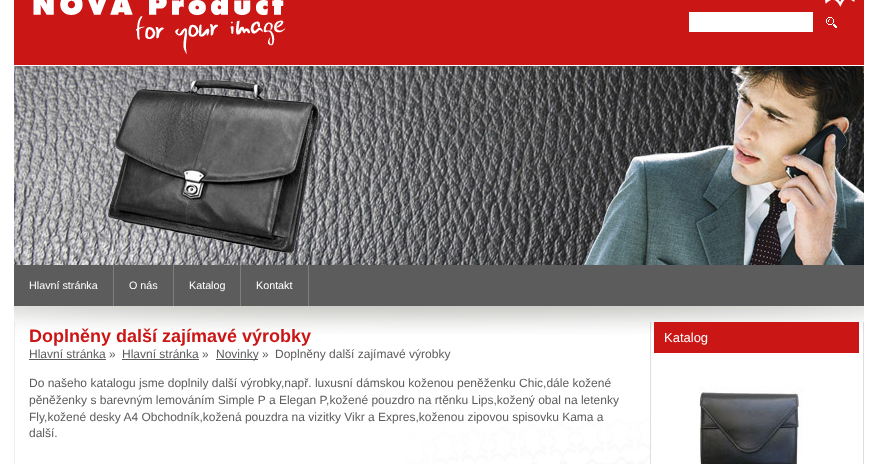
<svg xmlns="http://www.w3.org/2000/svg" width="878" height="464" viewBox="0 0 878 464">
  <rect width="100%" height="100%" fill="rgb(255,255,255)"/>
  <rect x="14" y="0" width="850" height="65" fill="rgb(203,22,22)"/>
  <image x="825" y="0" width="30" height="7" href="pic1.png"/>
  <image x="33" y="0" width="253" height="54" href="pic2.png"/>
  <rect x="689" y="12" width="124" height="20" fill="rgb(255,255,255)"/>
  <image x="826" y="17" width="11" height="11" href="pic3.png"/>
  <image x="14" y="66" width="850" height="199" href="pic4.png"/>
  <rect x="14" y="265" width="850" height="41" fill="rgb(92,92,92)"/>
  <rect x="113" y="265" width="1" height="41" fill="rgb(125,125,125)"/>
  <text x="29" y="289" font-family="Liberation Sans" font-size="10.75" fill="rgb(255,255,255)">Hlavní stránka</text>
  <rect x="173" y="265" width="1" height="41" fill="rgb(125,125,125)"/>
  <text x="129" y="289" font-family="Liberation Sans" font-size="10.75" fill="rgb(255,255,255)">O nás</text>
  <rect x="240" y="265" width="1" height="41" fill="rgb(125,125,125)"/>
  <text x="189" y="289" font-family="Liberation Sans" font-size="10.75" fill="rgb(255,255,255)">Katalog</text>
  <rect x="308" y="265" width="1" height="41" fill="rgb(125,125,125)"/>
  <text x="256" y="289" font-family="Liberation Sans" font-size="10.75" fill="rgb(255,255,255)">Kontakt</text>
  <image x="14" y="333" width="850" height="131" href="pic5.png"/>
  <image x="14" y="306" width="636" height="28" href="pic6.png"/>
  <text x="29" y="342" font-family="Liberation Sans" font-size="18" font-weight="bold" fill="rgb(203,22,22)">Doplněny další zajímavé výrobky</text>
  <text x="29" y="358" font-family="Liberation Sans" font-size="12" fill="rgb(92,92,92)">Hlavní stránka »</text>
  <rect x="29" y="359" width="77" height="1" fill="rgb(92,92,92)"/>
  <text x="122" y="358" font-family="Liberation Sans" font-size="12" fill="rgb(92,92,92)">Hlavní stránka »</text>
  <rect x="122" y="359" width="77" height="1" fill="rgb(92,92,92)"/>
  <rect x="216" y="359" width="42" height="1" fill="rgb(92,92,92)"/>
  <g font-family="Liberation Sans" font-size="12" fill="rgb(92,92,92)">
    <text x="216" y="358">Novinky »</text>
    <text x="275" y="358">Doplněny další zajímavé výrobky</text>
    <text>
      <tspan x="29" y="387">Do našeho katalogu jsme doplnily další výrobky,např. luxusní dámskou koženou peněženku Chic,dále kožené</tspan>
      <tspan x="29" y="404">pěněženky s barevným lemováním Simple P a Elegan P,kožené pouzdro na rtěnku Lips,kožený obal na letenky</tspan>
      <tspan x="29" y="421">Fly,kožené desky A4 Obchodník,kožená pouzdra na vizitky Vikr a Expres,koženou zipovou spisovku Kama a</tspan>
      <tspan x="29" y="437">další.</tspan>
    </text>
  </g>
  <image x="650" y="306" width="214" height="27" href="pic7.png"/>
  <rect x="654" y="322" width="205" height="31" fill="rgb(203,22,22)"/>
  <text x="664" y="342" font-family="Liberation Sans" font-size="13" fill="rgb(255,255,255)">Katalog</text>
  <image x="699" y="387" width="104" height="77" href="pic8.png"/>
</svg>
